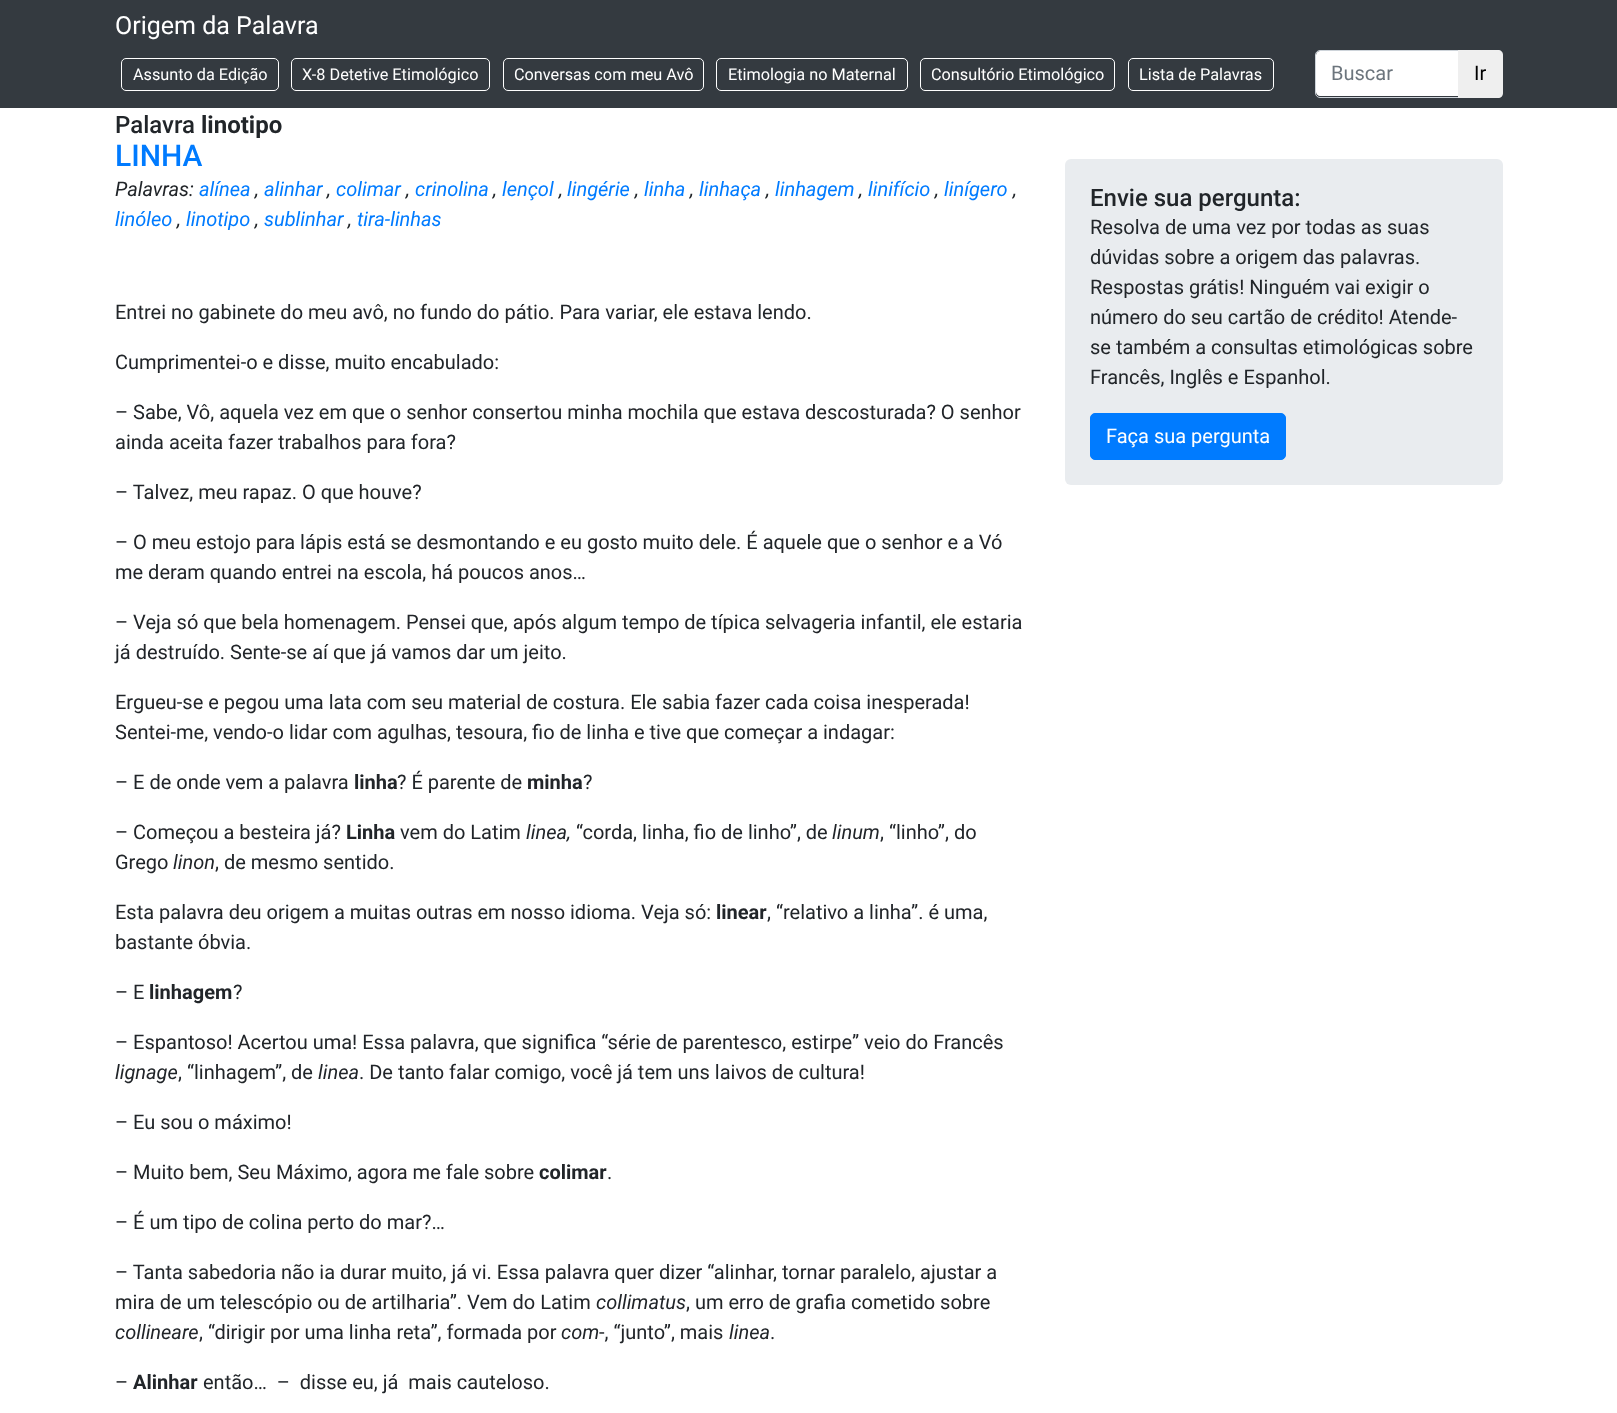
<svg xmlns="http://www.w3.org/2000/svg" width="1617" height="1413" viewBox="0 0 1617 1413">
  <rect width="100%" height="100%" fill="rgb(255,255,255)"/>
  <rect x="0" y="0" width="1617" height="108" fill="rgb(52,58,64)"/>
  <text x="115" y="34" font-family="Roboto" font-size="25" fill="rgb(255,255,255)">Origem da Palavra</text>
  <rect x="121.5" y="58.5" width="157" height="32" rx="4.5" fill="none" stroke="rgb(255,255,255)"/>
  <text x="133" y="80" font-family="Roboto" font-size="16.25" fill="rgb(255,255,255)">Assunto da Edição</text>
  <rect x="291.5" y="58.5" width="198" height="32" rx="4.5" fill="none" stroke="rgb(255,255,255)"/>
  <text x="302" y="80" font-family="Roboto" font-size="16.25" fill="rgb(255,255,255)">X-8 Detetive Etimológico</text>
  <rect x="503.5" y="58.5" width="200" height="32" rx="4.5" fill="none" stroke="rgb(255,255,255)"/>
  <text x="514" y="80" font-family="Roboto" font-size="16.25" fill="rgb(255,255,255)">Conversas com meu Avô</text>
  <rect x="716.5" y="58.5" width="191" height="32" rx="4.5" fill="none" stroke="rgb(255,255,255)"/>
  <text x="728" y="80" font-family="Roboto" font-size="16.25" fill="rgb(255,255,255)">Etimologia no Maternal</text>
  <rect x="920.5" y="58.5" width="194" height="32" rx="4.5" fill="none" stroke="rgb(255,255,255)"/>
  <text x="931" y="80" font-family="Roboto" font-size="16.25" fill="rgb(255,255,255)">Consultório Etimológico</text>
  <rect x="1128.5" y="58.5" width="145" height="32" rx="4.5" fill="none" stroke="rgb(255,255,255)"/>
  <text x="1139" y="80" font-family="Roboto" font-size="16.25" fill="rgb(255,255,255)">Lista de Palavras</text>
  <path d="M1320 51H1458V96H1320C1318 96 1316 94 1316 92V55C1316 53 1318 51 1320 51Z" fill="rgb(255,255,255)"/>
  <path d="M1320 50.5H1458.5V97.5H1320C1317.5 97.5 1315.5 95.5 1315.5 93V55C1315.5 52.5 1317.5 50.5 1320 50.5Z" fill="none" stroke="rgb(206,212,218)"/>
  <text x="1331" y="80" font-family="Roboto" font-size="20" fill="rgb(108,117,125)">Buscar</text>
  <path d="M1458 50H1498C1501 50 1503 52 1503 55V93C1503 96 1501 98 1498 98H1458Z" fill="rgb(239,239,239)"/>
  <text x="1474" y="80" font-family="Roboto" font-size="20" fill="rgb(0,0,0)">Ir</text>
  <text x="115" y="133" font-family="Roboto" font-size="24" font-weight="500" fill="rgb(33,37,41)">Palavra</text>
  <text x="201" y="133" font-family="Roboto" font-size="24" font-weight="bold" fill="rgb(33,37,41)">linotipo</text>
  <text x="115" y="166" font-family="Roboto" font-size="30" font-weight="500" fill="rgb(0,123,255)">LINHA</text>
  <text x="115" y="196" font-family="Roboto" font-size="20" font-style="italic" fill="rgb(33,37,41)">Palavras:</text>
  <text x="199" y="196" font-family="Roboto" font-size="20" font-style="italic" fill="rgb(0,123,255)">alínea</text>
  <text x="255" y="196" font-family="Roboto" font-size="20" font-style="italic" fill="rgb(33,37,41)">,</text>
  <text x="264" y="196" font-family="Roboto" font-size="20" font-style="italic" fill="rgb(0,123,255)">alinhar</text>
  <text x="327" y="196" font-family="Roboto" font-size="20" font-style="italic" fill="rgb(33,37,41)">,</text>
  <text x="336" y="196" font-family="Roboto" font-size="20" font-style="italic" fill="rgb(0,123,255)">colimar</text>
  <text x="406" y="196" font-family="Roboto" font-size="20" font-style="italic" fill="rgb(33,37,41)">,</text>
  <text x="415" y="196" font-family="Roboto" font-size="20" font-style="italic" fill="rgb(0,123,255)">crinolina</text>
  <text x="493" y="196" font-family="Roboto" font-size="20" font-style="italic" fill="rgb(33,37,41)">,</text>
  <text x="502" y="196" font-family="Roboto" font-size="20" font-style="italic" fill="rgb(0,123,255)">lençol</text>
  <text x="559" y="196" font-family="Roboto" font-size="20" font-style="italic" fill="rgb(33,37,41)">,</text>
  <text x="567" y="196" font-family="Roboto" font-size="20" font-style="italic" fill="rgb(0,123,255)">lingérie</text>
  <text x="635" y="196" font-family="Roboto" font-size="20" font-style="italic" fill="rgb(33,37,41)">,</text>
  <text x="644" y="196" font-family="Roboto" font-size="20" font-style="italic" fill="rgb(0,123,255)">linha</text>
  <text x="690" y="196" font-family="Roboto" font-size="20" font-style="italic" fill="rgb(33,37,41)">,</text>
  <text x="699" y="196" font-family="Roboto" font-size="20" font-style="italic" fill="rgb(0,123,255)">linhaça</text>
  <text x="766" y="196" font-family="Roboto" font-size="20" font-style="italic" fill="rgb(33,37,41)">,</text>
  <text x="775" y="196" font-family="Roboto" font-size="20" font-style="italic" fill="rgb(0,123,255)">linhagem</text>
  <text x="859" y="196" font-family="Roboto" font-size="20" font-style="italic" fill="rgb(33,37,41)">,</text>
  <text x="868" y="196" font-family="Roboto" font-size="20" font-style="italic" fill="rgb(0,123,255)">linifício</text>
  <text x="935" y="196" font-family="Roboto" font-size="20" font-style="italic" fill="rgb(33,37,41)">,</text>
  <text x="944" y="196" font-family="Roboto" font-size="20" font-style="italic" fill="rgb(0,123,255)">linígero</text>
  <text x="1013" y="196" font-family="Roboto" font-size="20" font-style="italic" fill="rgb(33,37,41)">,</text>
  <text x="115" y="226" font-family="Roboto" font-size="20" font-style="italic" fill="rgb(0,123,255)">linóleo</text>
  <text x="177" y="226" font-family="Roboto" font-size="20" font-style="italic" fill="rgb(33,37,41)">,</text>
  <text x="186" y="226" font-family="Roboto" font-size="20" font-style="italic" fill="rgb(0,123,255)">linotipo</text>
  <text x="255" y="226" font-family="Roboto" font-size="20" font-style="italic" fill="rgb(33,37,41)">,</text>
  <text x="264" y="226" font-family="Roboto" font-size="20" font-style="italic" fill="rgb(0,123,255)">sublinhar</text>
  <text x="348" y="226" font-family="Roboto" font-size="20" font-style="italic" fill="rgb(33,37,41)">,</text>
  <text x="357" y="226" font-family="Roboto" font-size="20" font-style="italic" fill="rgb(0,123,255)">tira-linhas</text>
  <g font-family="Roboto" font-size="20" fill="rgb(33,37,41)">
    <text x="115" y="319">Entrei no gabinete do meu avô, no fundo do pátio. Para variar, ele estava lendo.</text>
    <text x="115" y="369">Cumprimentei-o e disse, muito encabulado:</text>
    <text>
      <tspan x="115" y="419">– Sabe, Vô, aquela vez em que o senhor consertou minha mochila que estava descosturada? O senhor</tspan>
      <tspan x="115" y="449">ainda aceita fazer trabalhos para fora?</tspan>
    </text>
    <text x="115" y="499">– Talvez, meu rapaz. O que houve?</text>
    <text>
      <tspan x="115" y="549">– O meu estojo para lápis está se desmontando e eu gosto muito dele. É aquele que o senhor e a Vó</tspan>
      <tspan x="115" y="579">me deram quando entrei na escola, há poucos anos…</tspan>
    </text>
    <text>
      <tspan x="115" y="629">– Veja só que bela homenagem. Pensei que, após algum tempo de típica selvageria infantil, ele estaria</tspan>
      <tspan x="115" y="659">já destruído. Sente-se aí que já vamos dar um jeito.</tspan>
    </text>
    <text>
      <tspan x="115" y="709">Ergueu-se e pegou uma lata com seu material de costura. Ele sabia fazer cada coisa inesperada!</tspan>
      <tspan x="115" y="739">Sentei-me, vendo-o lidar com agulhas, tesoura, fio de linha e tive que começar a indagar:</tspan>
    </text>
    <text x="115" y="789">– E de onde vem a palavra</text>
  </g>
  <text x="354" y="789" font-family="Roboto" font-size="20" font-weight="bold" fill="rgb(33,37,41)">linha</text>
  <text x="397" y="789" font-family="Roboto" font-size="20" fill="rgb(33,37,41)">? É parente de</text>
  <text x="527" y="789" font-family="Roboto" font-size="20" font-weight="bold" fill="rgb(33,37,41)">minha</text>
  <g font-family="Roboto" font-size="20" fill="rgb(33,37,41)">
    <text x="583" y="789">?</text>
    <text x="115" y="839">– Começou a besteira já?</text>
  </g>
  <text x="346" y="839" font-family="Roboto" font-size="20" font-weight="bold" fill="rgb(33,37,41)">Linha</text>
  <text x="400" y="839" font-family="Roboto" font-size="20" fill="rgb(33,37,41)">vem do Latim</text>
  <text x="526" y="839" font-family="Roboto" font-size="20" font-style="italic" fill="rgb(33,37,41)">linea,</text>
  <text x="576" y="839" font-family="Roboto" font-size="20" fill="rgb(33,37,41)">“corda, linha, fio de linho”, de</text>
  <text x="832" y="839" font-family="Roboto" font-size="20" font-style="italic" fill="rgb(33,37,41)">linum</text>
  <g font-family="Roboto" font-size="20" fill="rgb(33,37,41)">
    <text x="880" y="839">, “linho”, do</text>
    <text x="115" y="869">Grego</text>
  </g>
  <text x="173" y="869" font-family="Roboto" font-size="20" font-style="italic" fill="rgb(33,37,41)">linon</text>
  <g font-family="Roboto" font-size="20" fill="rgb(33,37,41)">
    <text x="215" y="869">, de mesmo sentido.</text>
    <text x="115" y="919">Esta palavra deu origem a muitas outras em nosso idioma. Veja só:</text>
  </g>
  <text x="716" y="919" font-family="Roboto" font-size="20" font-weight="bold" fill="rgb(33,37,41)">linear</text>
  <g font-family="Roboto" font-size="20" fill="rgb(33,37,41)">
    <text x="767" y="919">, “relativo a linha”. é uma,</text>
    <text x="115" y="949">bastante óbvia.</text>
    <text x="115" y="999">– E</text>
  </g>
  <text x="149" y="999" font-family="Roboto" font-size="20" font-weight="bold" fill="rgb(33,37,41)">linhagem</text>
  <g font-family="Roboto" font-size="20" fill="rgb(33,37,41)">
    <text x="233" y="999">?</text>
    <text x="115" y="1049">– Espantoso! Acertou uma! Essa palavra, que significa “série de parentesco, estirpe” veio do Francês</text>
  </g>
  <text x="115" y="1079" font-family="Roboto" font-size="20" font-style="italic" fill="rgb(33,37,41)">lignage</text>
  <text x="178" y="1079" font-family="Roboto" font-size="20" fill="rgb(33,37,41)">, “linhagem”, de</text>
  <text x="318" y="1079" font-family="Roboto" font-size="20" font-style="italic" fill="rgb(33,37,41)">linea</text>
  <g font-family="Roboto" font-size="20" fill="rgb(33,37,41)">
    <text x="359" y="1079">. De tanto falar comigo, você já tem uns laivos de cultura!</text>
    <text x="115" y="1129">– Eu sou o máximo!</text>
    <text x="115" y="1179">– Muito bem, Seu Máximo, agora me fale sobre</text>
  </g>
  <text x="539" y="1179" font-family="Roboto" font-size="20" font-weight="bold" fill="rgb(33,37,41)">colimar</text>
  <g font-family="Roboto" font-size="20" fill="rgb(33,37,41)">
    <text x="607" y="1179">.</text>
    <text x="115" y="1229">– É um tipo de colina perto do mar?…</text>
    <text>
      <tspan x="115" y="1279">– Tanta sabedoria não ia durar muito, já vi. Essa palavra quer dizer “alinhar, tornar paralelo, ajustar a</tspan>
      <tspan x="115" y="1309">mira de um telescópio ou de artilharia”. Vem do Latim</tspan>
    </text>
  </g>
  <text x="596" y="1309" font-family="Roboto" font-size="20" font-style="italic" fill="rgb(33,37,41)">collimatus</text>
  <text x="686" y="1309" font-family="Roboto" font-size="20" fill="rgb(33,37,41)">, um erro de grafia cometido sobre</text>
  <text x="115" y="1339" font-family="Roboto" font-size="20" font-style="italic" fill="rgb(33,37,41)">collineare</text>
  <text x="199" y="1339" font-family="Roboto" font-size="20" fill="rgb(33,37,41)">, “dirigir por uma linha reta”, formada por</text>
  <text x="561" y="1339" font-family="Roboto" font-size="20" font-style="italic" fill="rgb(33,37,41)">com</text>
  <text x="599" y="1339" font-family="Roboto" font-size="20" fill="rgb(33,37,41)">-, “junto”, mais</text>
  <text x="729" y="1339" font-family="Roboto" font-size="20" font-style="italic" fill="rgb(33,37,41)">linea</text>
  <g font-family="Roboto" font-size="20" fill="rgb(33,37,41)">
    <text x="770" y="1339">.</text>
    <text x="115" y="1389">–</text>
  </g>
  <text x="133" y="1389" font-family="Roboto" font-size="20" font-weight="bold" fill="rgb(33,37,41)">Alinhar</text>
  <text x="203" y="1389" font-family="Roboto" font-size="20" fill="rgb(33,37,41)" xml:space="preserve">então…  –  disse eu, já  mais cauteloso.</text>
  <rect x="1065" y="159" width="438" height="326" rx="6" fill="rgb(233,236,239)"/>
  <text x="1090" y="206" font-family="Roboto" font-size="24" font-weight="500" fill="rgb(33,37,41)">Envie sua pergunta:</text>
  <g font-family="Roboto" font-size="20" fill="rgb(33,37,41)">
    <text>
      <tspan x="1090" y="234">Resolva de uma vez por todas as suas</tspan>
      <tspan x="1090" y="264">dúvidas sobre a origem das palavras.</tspan>
      <tspan x="1090" y="294">Respostas grátis! Ninguém vai exigir o</tspan>
      <tspan x="1090" y="324">número do seu cartão de crédito! Atende-</tspan>
      <tspan x="1090" y="354">se também a consultas etimológicas sobre</tspan>
      <tspan x="1090" y="384">Francês, Inglês e Espanhol.</tspan>
    </text>
  </g>
  <rect x="1090.5" y="413.5" width="195" height="46" rx="4.5" fill="rgb(0,123,255)" stroke="rgb(0,123,255)"/>
  <text x="1106" y="443" font-family="Roboto" font-size="20" fill="rgb(255,255,255)">Faça sua pergunta</text>
</svg>
